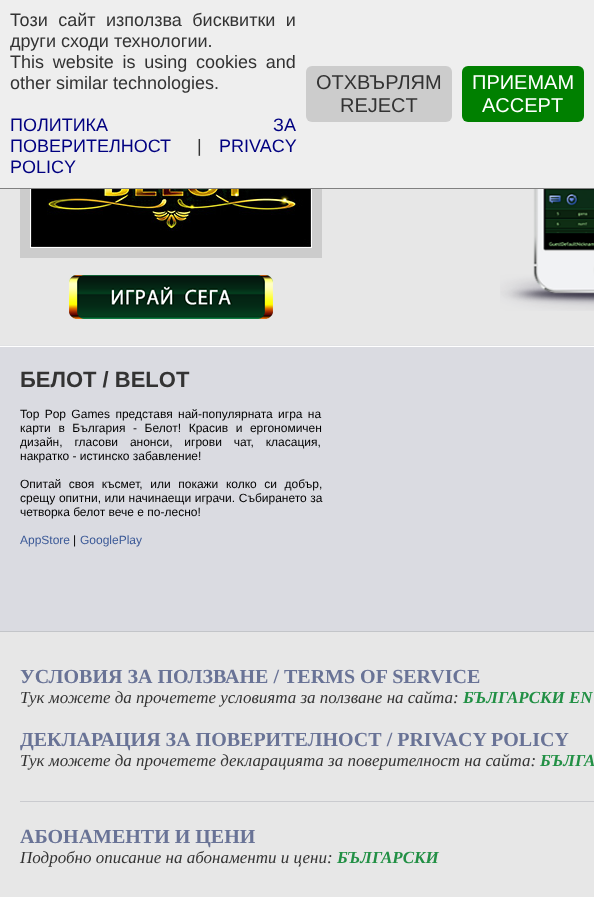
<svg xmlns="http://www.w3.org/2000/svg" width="594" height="897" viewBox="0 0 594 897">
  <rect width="100%" height="100%" fill="rgb(231,231,231)"/>
  <rect x="30" y="189" width="282" height="59" fill="rgb(255,255,255)"/>
  <rect x="25" y="-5" width="292" height="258" fill="none" stroke="rgb(204,204,204)" stroke-width="10"/>
  <rect x="0" y="0" width="594" height="188" fill="rgb(238,238,238)"/>
  <rect x="0" y="188" width="594" height="1" fill="rgb(128,128,128)"/>
  <g font-family="Liberation Sans" font-size="18" fill="rgb(51,51,51)">
    <text>
      <tspan x="10" y="26" word-spacing="5.5">Този сайт използва бисквитки и</tspan>
      <tspan x="10" y="47">други сходи технологии.</tspan>
      <tspan x="10" y="68" word-spacing="3.75">This website is using cookies and</tspan>
      <tspan x="10" y="89">other similar technologies.</tspan>
    </text>
  </g>
  <g font-family="Liberation Sans" font-size="18" fill="rgb(0,0,128)">
    <text>
      <tspan x="10" y="131" word-spacing="160">ПOЛИТИКА ЗА</tspan>
      <tspan x="10" y="152">ПОВЕРИТЕЛНОСТ</tspan>
    </text>
  </g>
  <text x="197" y="152" font-family="Liberation Sans" font-size="18" fill="rgb(51,51,51)">|</text>
  <g font-family="Liberation Sans" font-size="18" fill="rgb(0,0,128)">
    <text x="219" y="152">PRIVACY</text>
    <text x="10" y="173">POLICY</text>
  </g>
  <rect x="306" y="66" width="146" height="56" rx="6" fill="rgb(204,204,204)"/>
  <g font-family="Liberation Sans" font-size="20" fill="rgb(51,51,51)">
    <text x="316" y="89">ОТХВЪРЛЯМ</text>
    <text x="340" y="112">REJECT</text>
  </g>
  <rect x="462" y="66" width="122" height="56" rx="6" fill="rgb(0,128,0)"/>
  <g font-family="Liberation Sans" font-size="20" fill="rgb(255,255,255)">
    <text x="472" y="89">ПРИЕМАМ</text>
    <text x="482" y="112">ACCEPT</text>
  </g>
  <image x="0" y="345" width="594" height="287" href="pic1.png"/>
  <image x="31" y="189" width="280" height="58" href="pic2.png"/>
  <image x="69" y="275" width="204" height="44" href="pic3.png"/>
  <image x="500" y="189" width="94" height="122" href="pic4.png"/>
  <text x="20" y="387" font-family="Liberation Sans" font-size="22" font-weight="bold" fill="rgb(51,51,51)">БЕЛОТ / BELOT</text>
  <g font-family="Liberation Sans" font-size="12" fill="rgb(0,0,0)">
    <text>
      <tspan x="20" y="418" word-spacing="2">Top Pop Games представя най-популярната игра на</tspan>
      <tspan x="20" y="432" word-spacing="4.25">карти в България - Белот! Красив и ергономичен</tspan>
      <tspan x="20" y="446" word-spacing="8.5">дизайн, гласови анонси, игрови чат, класация,</tspan>
      <tspan x="20" y="460">накратко - истинско забавление!</tspan>
    </text>
    <text>
      <tspan x="20" y="488" word-spacing="4.25">Опитай своя късмет, или покажи колко си добър,</tspan>
      <tspan x="20" y="502" word-spacing="0.25">срещу опитни, или начинаещи играчи. Събирането за</tspan>
      <tspan x="20" y="516">четворка белот вече е по-лесно!</tspan>
    </text>
  </g>
  <text x="20" y="544" font-family="Liberation Sans" font-size="12" fill="rgb(59,89,151)">AppStore</text>
  <text x="73" y="544" font-family="Liberation Sans" font-size="12" fill="rgb(0,0,0)">|</text>
  <text x="80" y="544" font-family="Liberation Sans" font-size="12" fill="rgb(59,89,151)">GooglePlay</text>
  <text x="20" y="683" font-family="Liberation Serif" font-size="20" font-weight="bold" fill="rgb(105,115,150)">УСЛОВИЯ ЗА ПОЛЗВАНЕ / TERMS OF SERVICE</text>
  <text x="20" y="703" font-family="Liberation Serif" font-size="17" font-style="italic" fill="rgb(51,51,51)">Тук можете да прочетете условията за ползване на сайта:</text>
  <text x="463" y="703" font-family="Liberation Serif" font-size="17" font-weight="bold" font-style="italic" fill="rgb(34,144,69)">БЪЛГАРСКИ EN</text>
  <text x="20" y="746" font-family="Liberation Serif" font-size="20" font-weight="bold" fill="rgb(105,115,150)">ДЕКЛАРАЦИЯ ЗА ПОВЕРИТЕЛНОСТ / PRIVACY POLICY</text>
  <text x="20" y="766" font-family="Liberation Serif" font-size="17" font-style="italic" fill="rgb(51,51,51)">Тук можете да прочетете декларацията за поверителност на сайта:</text>
  <text x="540" y="766" font-family="Liberation Serif" font-size="17" font-weight="bold" font-style="italic" fill="rgb(34,144,69)">БЪЛГА</text>
  <rect x="20" y="801" width="574" height="1" fill="rgb(202,203,207)"/>
  <text x="20" y="843" font-family="Liberation Serif" font-size="20" font-weight="bold" fill="rgb(105,115,150)">АБОНАМЕНТИ И ЦЕНИ</text>
  <text x="20" y="863" font-family="Liberation Serif" font-size="17" font-style="italic" fill="rgb(51,51,51)">Подробно описание на абонаменти и цени:</text>
  <text x="337" y="863" font-family="Liberation Serif" font-size="17" font-weight="bold" font-style="italic" fill="rgb(34,144,69)">БЪЛГАРСКИ</text>
</svg>
